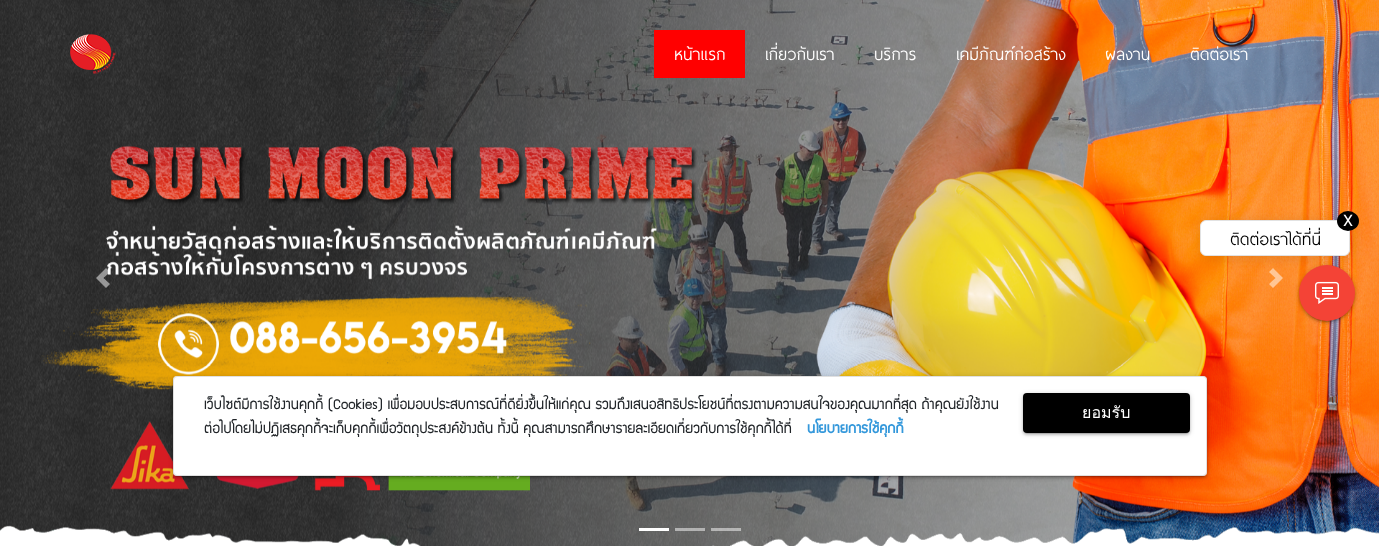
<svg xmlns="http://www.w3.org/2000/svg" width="1379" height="546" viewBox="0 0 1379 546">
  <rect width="100%" height="100%" fill="rgb(255,255,255)"/>
  <image x="0" y="0" width="1379" height="546" href="pic1.png"/>
  <path d="M106 268L96 278L106 288L110 284L103.5 278L110 272Z" fill="rgba(255,255,255,0.5)"/>
  <path d="M1273 268L1269 272L1275.5 278L1269 284L1273 288L1283 278Z" fill="rgba(255,255,255,0.5)"/>
  <rect x="639" y="528" width="30" height="3" fill="rgb(255,255,255)"/>
  <rect x="675" y="528" width="30" height="3" fill="rgba(255,255,255,0.5)"/>
  <rect x="711" y="528" width="30" height="3" fill="rgba(255,255,255,0.5)"/>
  <image x="70" y="34" width="46" height="40" href="pic2.png"/>
  <rect x="654" y="30" width="91" height="48" fill="rgb(255,0,0)"/>
  <g font-family="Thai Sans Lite" font-size="21.5" fill="rgb(255,255,255)">
    <text x="674" y="60">หน้าแรก</text>
    <text x="765" y="60">เกี่ยวกับเรา</text>
    <text x="874" y="60">บริการ</text>
    <text x="956" y="60">เคมีภัณฑ์ก่อสร้าง</text>
    <text x="1105" y="60">ผลงาน</text>
    <text x="1190" y="60">ติดต่อเรา</text>
  </g>
  <rect x="1299" y="266" width="56" height="56" rx="28" fill="rgba(0,0,0,0.2)" filter="blur(2.5px)"/>
  <rect x="1301" y="270" width="52" height="52" rx="26" fill="rgba(0,0,0,0.12)" filter="blur(0.5px)"/>
  <rect x="1299" y="267" width="56" height="56" rx="28" fill="rgba(0,0,0,0.14)" filter="blur(1px)"/>
  <circle cx="1327" cy="293" r="28" fill="rgb(244,67,54)"/>
  <rect x="1202" y="222" width="150" height="36" rx="6" fill="rgba(0,0,0,0.1)" filter="blur(6.5px)"/>
  <rect x="1200.5" y="220.5" width="149" height="35" rx="5.5" fill="rgb(255,255,255)" stroke="rgb(226,226,226)"/>
  <ellipse cx="1348" cy="221" rx="11" ry="10" fill="rgb(0,0,0)"/>
  <text x="1343" y="226" font-family="Roboto" font-size="16" fill="rgb(255,255,255)">X</text>
  <text x="1230" y="245" font-family="Thai Sans Lite" font-size="21.5" fill="rgb(0,0,0)">ติดต่อเราได้ที่นี่</text>
  <image x="1315" y="281" width="24" height="23" href="pic3.png"/>
  <rect x="173" y="377" width="1034" height="100" rx="4" fill="rgba(0,0,0,0.2)" filter="blur(2.5px)"/>
  <rect x="175" y="381" width="1030" height="96" rx="2" fill="rgba(0,0,0,0.12)" filter="blur(0.5px)"/>
  <rect x="173" y="378" width="1034" height="100" rx="4" fill="rgba(0,0,0,0.14)" filter="blur(1px)"/>
  <rect x="173" y="376" width="1034" height="100" rx="4" fill="rgb(255,255,255)"/>
  <rect x="173.5" y="376.5" width="1033" height="99" rx="3.5" fill="none" stroke="rgba(0,0,0,0.12)"/>
  <g font-family="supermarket" font-size="16" fill="rgb(33,37,41)">
    <text>
      <tspan x="204" y="409">เว็บไซต์มีการใช้งานคุกกี้ (Cookies) เพื่อมอบประสบการณ์ที่ดียิ่งขึ้นให้แก่คุณ รวมถึงเสนอสิทธิประโยชน์ที่ตรงตามความสนใจของคุณมากที่สุด ถ้าคุณยังใช้งาน</tspan>
      <tspan x="204" y="433">ต่อไปโดยไม่ปฏิเสธคุกกี้จะเก็บคุกกี้เพื่อวัตถุประสงค์ข้างต้น ทั้งนี้ คุณสามารถศึกษารายละเอียดเกี่ยวกับการใช้คุกกี้ได้ที่</tspan>
    </text>
  </g>
  <text x="807" y="433" font-family="supermarket" font-size="16" font-weight="bold" fill="rgb(52,152,219)">นโยบายการใช้คุกกี้</text>
  <rect x="1023" y="394" width="167" height="40" rx="4" fill="rgba(0,0,0,0.2)" filter="blur(2.5px)"/>
  <rect x="1025" y="398" width="163" height="36" rx="2" fill="rgba(0,0,0,0.12)" filter="blur(0.5px)"/>
  <rect x="1023" y="395" width="167" height="40" rx="4" fill="rgba(0,0,0,0.14)" filter="blur(1px)"/>
  <rect x="1023" y="393" width="167" height="40" rx="4" fill="rgb(0,0,0)"/>
  <text x="1082" y="418" font-family="Loma" font-size="16" fill="rgb(255,255,255)">ยอมรับ</text>
</svg>
